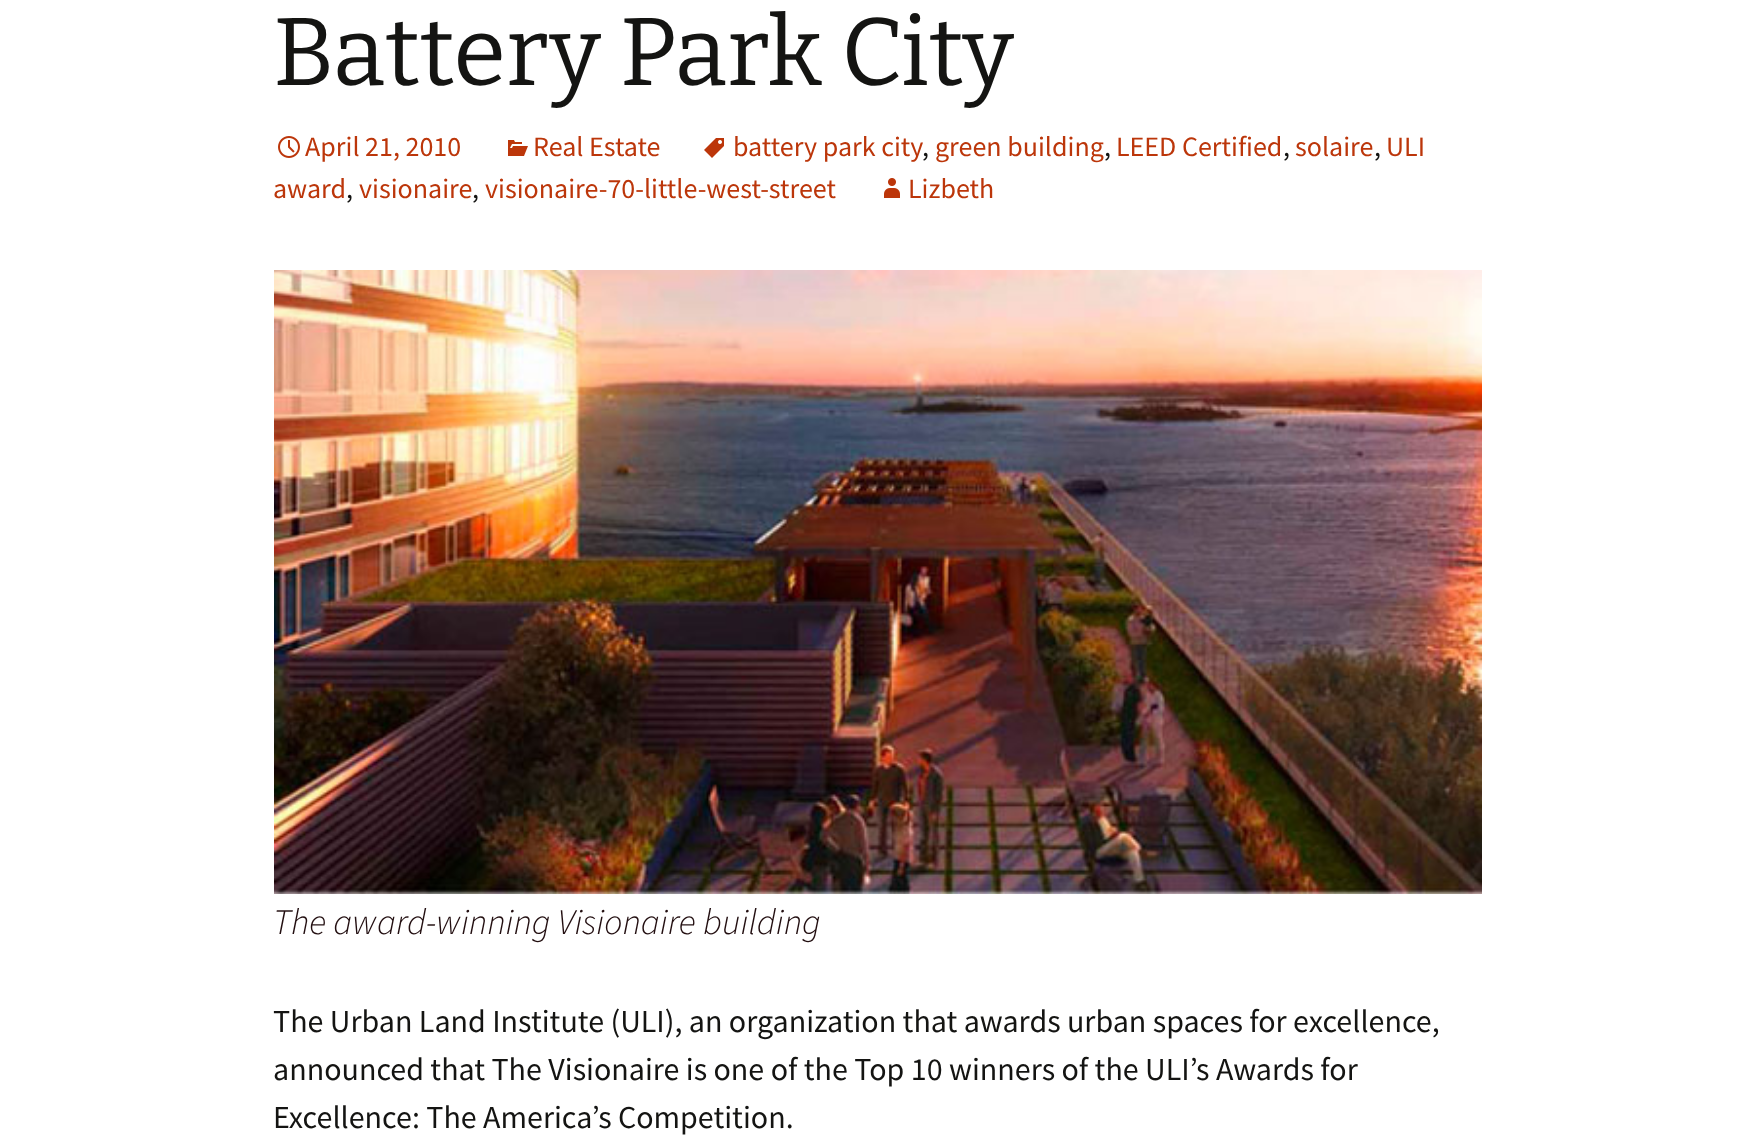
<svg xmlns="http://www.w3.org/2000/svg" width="1753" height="1141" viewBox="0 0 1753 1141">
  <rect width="100%" height="100%" fill="rgb(255,255,255)"/>
  <text x="273" y="85" font-family="Bitter" font-size="96" fill="rgb(20,20,18)">Battery Park City</text>
  <image x="704" y="138" width="20" height="20" href="pic1.png"/>
  <text x="733" y="156" font-family="Source Sans Pro" font-size="28" fill="rgb(188,54,10)">battery park city</text>
  <text x="922" y="156" font-family="Source Sans Pro" font-size="28" fill="rgb(20,20,18)">,</text>
  <text x="935" y="156" font-family="Source Sans Pro" font-size="28" fill="rgb(188,54,10)">green building</text>
  <text x="1104" y="156" font-family="Source Sans Pro" font-size="28" fill="rgb(20,20,18)">,</text>
  <text x="1116" y="156" font-family="Source Sans Pro" font-size="28" fill="rgb(188,54,10)">LEED Certified</text>
  <text x="1283" y="156" font-family="Source Sans Pro" font-size="28" fill="rgb(20,20,18)">,</text>
  <text x="1295" y="156" font-family="Source Sans Pro" font-size="28" fill="rgb(188,54,10)">solaire</text>
  <text x="1374" y="156" font-family="Source Sans Pro" font-size="28" fill="rgb(20,20,18)">,</text>
  <g font-family="Source Sans Pro" font-size="28" fill="rgb(188,54,10)">
    <text x="1386" y="156">ULI</text>
    <text x="273" y="198">award</text>
  </g>
  <text x="346" y="198" font-family="Source Sans Pro" font-size="28" fill="rgb(20,20,18)">,</text>
  <text x="359" y="198" font-family="Source Sans Pro" font-size="28" fill="rgb(188,54,10)">visionaire</text>
  <text x="472" y="198" font-family="Source Sans Pro" font-size="28" fill="rgb(20,20,18)">,</text>
  <text x="485" y="198" font-family="Source Sans Pro" font-size="28" fill="rgb(188,54,10)">visionaire-70-little-west-street</text>
  <image x="278" y="136" width="22" height="22" href="pic2.png"/>
  <text x="305" y="156" font-family="Source Sans Pro" font-size="28" fill="rgb(188,54,10)">April 21, 2010</text>
  <image x="508" y="140" width="20" height="16" href="pic3.png"/>
  <text x="533" y="156" font-family="Source Sans Pro" font-size="28" fill="rgb(188,54,10)">Real Estate</text>
  <image x="884" y="178" width="16" height="20" href="pic4.png"/>
  <text x="908" y="198" font-family="Source Sans Pro" font-size="28" fill="rgb(188,54,10)">Lizbeth</text>
  <image x="274" y="270" width="1208" height="624" href="pic5.png"/>
  <text x="273" y="934" font-family="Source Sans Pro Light" font-size="36" font-weight="300" font-style="italic" fill="rgb(34,14,16)">The award-winning Visionaire building</text>
  <g font-family="Source Sans Pro" font-size="32" fill="rgb(20,20,18)">
    <text>
      <tspan x="273" y="1032">The Urban Land Institute (ULI), an organization that awards urban spaces for excellence,</tspan>
      <tspan x="273" y="1080">announced that The Visionaire is one of the Top 10 winners of the ULI’s Awards for</tspan>
      <tspan x="273" y="1128">Excellence: The America’s Competition.</tspan>
    </text>
  </g>
</svg>
